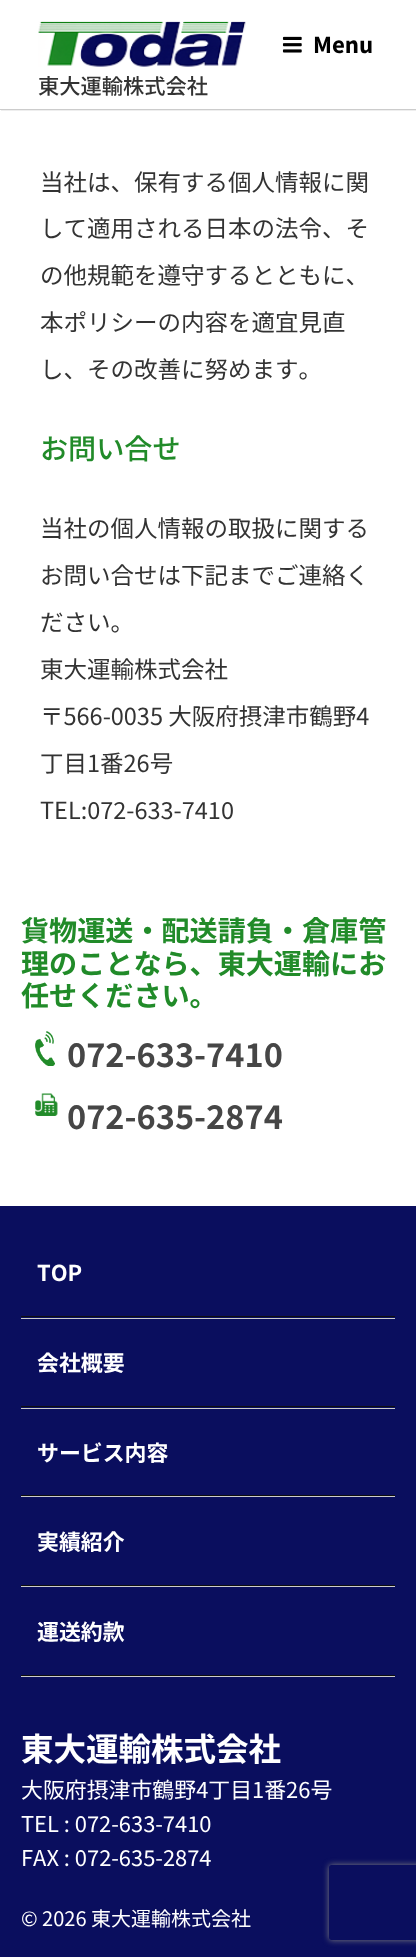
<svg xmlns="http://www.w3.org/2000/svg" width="416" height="1957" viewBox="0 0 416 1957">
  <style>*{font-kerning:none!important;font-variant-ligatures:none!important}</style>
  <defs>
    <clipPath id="clip1"><path d="M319 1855H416V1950H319ZM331.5 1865H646.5C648 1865 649 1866 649 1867.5V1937.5C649 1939 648 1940 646.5 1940H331.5C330 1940 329 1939 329 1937.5V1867.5C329 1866 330 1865 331.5 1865Z" clip-rule="evenodd"/></clipPath>
  </defs>
  <rect width="100%" height="100%" fill="rgb(255,255,255)"/>
  <rect x="1" y="1" width="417" height="110" fill="rgb(238,238,238)" filter="blur(0.5px)"/>
  <rect x="1" y="1" width="415" height="108" fill="rgb(255,255,255)"/>
  <image x="282" y="36" width="20" height="17" href="pic1.png"/>
  <text x="313" y="53" font-family="Noto Sans JP" font-size="21.9" font-weight="800" fill="rgb(0,0,0)">Menu</text>
  <g font-family="Noto Sans JP" font-size="23.5" fill="rgb(51,51,51)">
    <text>
      <tspan x="40" y="191">当社は、保有する個人情報に関</tspan>
      <tspan x="40" y="237">して適用される日本の法令、そ</tspan>
    </text>
    <text x="40" y="284">の他規範を遵守するとともに、</text>
    <text x="40" y="331">本ポリシーの内容を適宜見直</text>
    <text x="40" y="378">し、その改善に努めます。</text>
  </g>
  <text x="40" y="459" font-family="Noto Sans JP" font-size="28.1" font-weight="500" fill="rgb(33,139,41)">お問い合せ</text>
  <g font-family="Noto Sans JP" font-size="23.5" fill="rgb(51,51,51)">
    <text x="40" y="537">当社の個人情報の取扱に関する</text>
    <text x="40" y="584">お問い合せは下記までご連絡く</text>
    <text x="40" y="631">ださい。</text>
    <text x="40" y="678">東大運輸株式会社</text>
    <text x="40" y="725">〒566-0035 大阪府摂津市鶴野4</text>
    <text x="40" y="772">丁目1番26号</text>
    <text x="40" y="819">TEL:072-633-7410</text>
  </g>
  <g font-family="Noto Sans JP" font-size="28.1" font-weight="bold" fill="rgb(33,139,41)">
    <text>
      <tspan x="21" y="941">貨物運送・配送請負・倉庫管</tspan>
      <tspan x="21" y="974">理のことなら、東大運輸にお</tspan>
      <tspan x="21" y="1006">任せください。</tspan>
    </text>
  </g>
  <image x="35" y="1031" width="20" height="35" href="pic2.png"/>
  <text x="67" y="1067" font-family="Noto Sans JP" font-size="32.5" font-weight="bold" fill="rgb(70,70,70)">072-633-7410</text>
  <image x="35" y="1093" width="23" height="23" href="pic3.png"/>
  <text x="67" y="1129" font-family="Noto Sans JP" font-size="32.5" font-weight="bold" fill="rgb(70,70,70)">072-635-2874</text>
  <rect x="0" y="1206" width="416" height="751" fill="rgb(10,14,94)"/>
  <rect x="21" y="1316" width="374" height="1" fill="rgb(15,15,15)"/>
  <rect x="21" y="1318" width="374" height="1" fill="rgb(204,204,204)"/>
  <text x="37" y="1281" font-family="Noto Sans JP" font-size="21.9" font-weight="bold" fill="rgb(255,255,255)">TOP</text>
  <rect x="21" y="1406" width="374" height="1" fill="rgb(15,15,15)"/>
  <rect x="21" y="1408" width="374" height="1" fill="rgb(204,204,204)"/>
  <text x="37" y="1371" font-family="Noto Sans JP" font-size="21.9" font-weight="bold" fill="rgb(255,255,255)">会社概要</text>
  <rect x="21" y="1495" width="374" height="1" fill="rgb(15,15,15)"/>
  <rect x="21" y="1496" width="374" height="1" fill="rgb(204,204,204)"/>
  <text x="37" y="1461" font-family="Noto Sans JP" font-size="21.9" font-weight="bold" fill="rgb(255,255,255)">サービス内容</text>
  <rect x="21" y="1585" width="374" height="1" fill="rgb(15,15,15)"/>
  <rect x="21" y="1586" width="374" height="1" fill="rgb(204,204,204)"/>
  <text x="37" y="1550" font-family="Noto Sans JP" font-size="21.9" font-weight="bold" fill="rgb(255,255,255)">実績紹介</text>
  <rect x="21" y="1675" width="374" height="1" fill="rgb(15,15,15)"/>
  <rect x="21" y="1676" width="374" height="1" fill="rgb(204,204,204)"/>
  <text x="37" y="1640" font-family="Noto Sans JP" font-size="21.9" font-weight="bold" fill="rgb(255,255,255)">運送約款</text>
  <text x="21" y="1761" font-family="Noto Sans JP" font-size="32.5" font-weight="bold" fill="rgb(255,255,255)">東大運輸株式会社</text>
  <g font-family="Noto Sans JP" font-size="21.9" fill="rgb(255,255,255)">
    <text>
      <tspan x="21" y="1798">大阪府摂津市鶴野4丁目1番26号</tspan>
      <tspan x="21" y="1832">TEL : 072-633-7410</tspan>
      <tspan x="21" y="1866">FAX : 072-635-2874</tspan>
    </text>
  </g>
  <text x="21" y="1926" font-family="Noto Sans JP" font-size="20" fill="rgb(255,255,255)">© 2026 東大運輸株式会社</text>
  <rect x="0" y="109" width="416" height="1" fill="rgb(204,204,204)"/>
  <image x="38" y="21" width="208" height="46" href="pic4.png"/>
  <text x="38" y="94" font-family="Noto Sans JP" font-size="21.25" font-weight="500" fill="rgb(51,51,51)">東大運輸株式会社</text>
  <g clip-path="url(#clip1)">
    <rect x="329" y="1865" width="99" height="75" rx="2.5" fill="rgb(128,128,128)" filter="blur(3px)"/>
  </g>
</svg>
